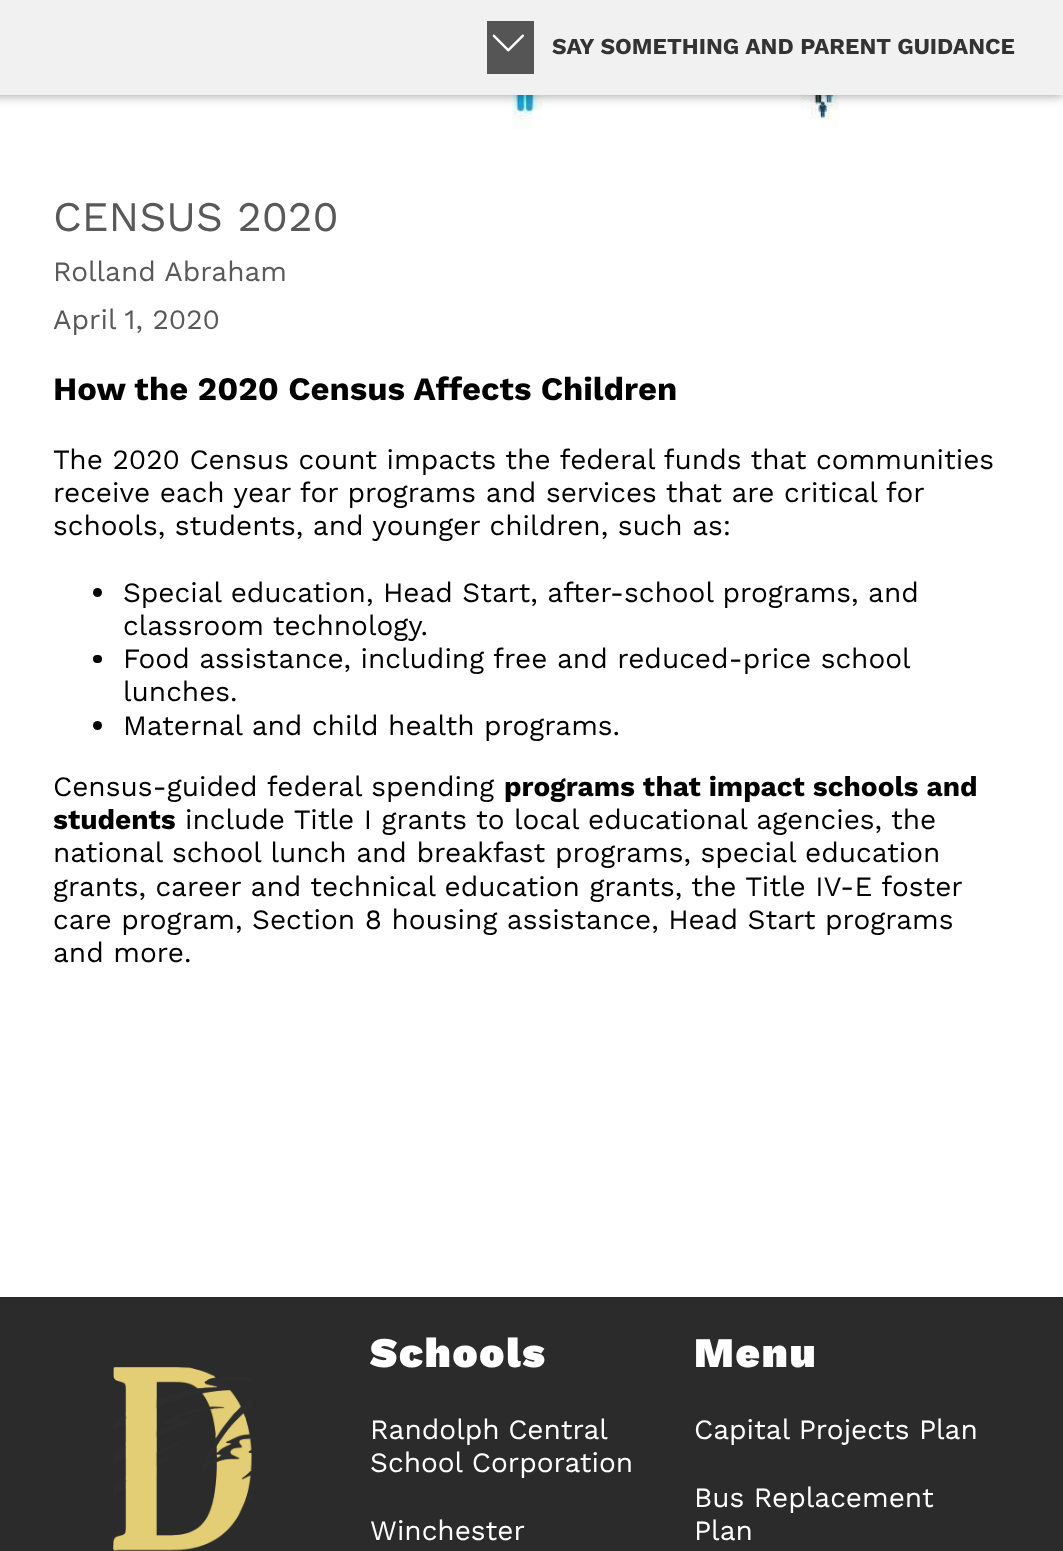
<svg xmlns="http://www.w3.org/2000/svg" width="1063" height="1551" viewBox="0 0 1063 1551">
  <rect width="100%" height="100%" fill="rgb(255,255,255)"/>
  <image x="282" y="95" width="557" height="34" href="pic2.png"/>
  <rect x="-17" y="0" width="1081" height="95" fill="rgba(0,0,0,0.4)" filter="blur(6px)"/>
  <rect x="0" y="0" width="1063" height="95" fill="rgb(241,241,241)"/>
  <rect x="487" y="21" width="47" height="53" fill="rgb(85,85,85)"/>
  <image x="492" y="34" width="32" height="18" href="pic1.png"/>
  <text x="552" y="54" font-family="Work Sans" font-size="22.75" font-weight="bold" fill="rgb(51,51,51)">SAY SOMETHING AND PARENT GUIDANCE</text>
  <text x="53" y="231" font-family="Work Sans" font-size="42" fill="rgb(89,89,89)">CENSUS 2020</text>
  <g font-family="Work Sans" font-size="28" fill="rgb(89,89,89)">
    <text>
      <tspan x="53" y="281">Rolland Abraham</tspan>
      <tspan x="53" y="329">April 1, 2020</tspan>
    </text>
  </g>
  <text x="53" y="400" font-family="Work Sans" font-size="32.75" font-weight="bold" fill="rgb(0,0,0)">How the 2020 Census Affects Children</text>
  <g font-family="Work Sans" font-size="28" fill="rgb(0,0,0)">
    <text>
      <tspan x="53" y="469">The 2020 Census count impacts the federal funds that communities</tspan>
      <tspan x="53" y="502">receive each year for programs and services that are critical for</tspan>
      <tspan x="53" y="535">schools, students, and younger children, such as:</tspan>
    </text>
  </g>
  <circle cx="97.5" cy="592.5" r="4.5" fill="rgb(0,0,0)"/>
  <g font-family="Work Sans" font-size="28" fill="rgb(0,0,0)">
    <text>
      <tspan x="123" y="602">Special education, Head Start, after-school programs, and</tspan>
      <tspan x="123" y="635">classroom technology.</tspan>
    </text>
  </g>
  <rect x="93" y="655" width="9" height="8" rx="4" fill="rgb(0,0,0)"/>
  <g font-family="Work Sans" font-size="28" fill="rgb(0,0,0)">
    <text>
      <tspan x="123" y="668">Food assistance, including free and reduced-price school</tspan>
      <tspan x="123" y="701">lunches.</tspan>
    </text>
  </g>
  <circle cx="97.5" cy="725.5" r="4.5" fill="rgb(0,0,0)"/>
  <g font-family="Work Sans" font-size="28" fill="rgb(0,0,0)">
    <text x="123" y="735">Maternal and child health programs.</text>
    <text x="53" y="796">Census-guided federal spending</text>
  </g>
  <g font-family="Work Sans" font-size="28" font-weight="bold" fill="rgb(0,0,0)">
    <text x="504" y="796">programs that impact schools and</text>
    <text x="53" y="829">students</text>
  </g>
  <g font-family="Work Sans" font-size="28" fill="rgb(0,0,0)">
    <text x="185" y="829">include Title I grants to local educational agencies, the</text>
    <text>
      <tspan x="53" y="862">national school lunch and breakfast programs, special education</tspan>
      <tspan x="53" y="896">grants, career and technical education grants, the Title IV-E foster</tspan>
      <tspan x="53" y="929">care program, Section 8 housing assistance, Head Start programs</tspan>
      <tspan x="53" y="962">and more.</tspan>
    </text>
  </g>
  <rect x="0" y="1297" width="1063" height="254" fill="rgb(43,43,43)"/>
  <image x="113" y="1367" width="139" height="184" href="pic3.png"/>
  <text x="370" y="1367" font-family="Work Sans" font-size="42" font-weight="900" letter-spacing="1.75" fill="rgb(255,255,255)">Schools</text>
  <g font-family="Work Sans" font-size="28" fill="rgb(255,255,255)">
    <text>
      <tspan x="370" y="1439" word-spacing="-1">Randolph Central</tspan>
      <tspan x="370" y="1472">School Corporation</tspan>
    </text>
    <text x="370" y="1540">Winchester</text>
  </g>
  <text x="694" y="1367" font-family="Work Sans" font-size="42" font-weight="900" letter-spacing="1.75" fill="rgb(255,255,255)">Menu</text>
  <g font-family="Work Sans" font-size="28" fill="rgb(255,255,255)">
    <text x="694" y="1439">Capital Projects Plan</text>
    <text>
      <tspan x="694" y="1507">Bus Replacement</tspan>
      <tspan x="694" y="1540">Plan</tspan>
    </text>
  </g>
</svg>
